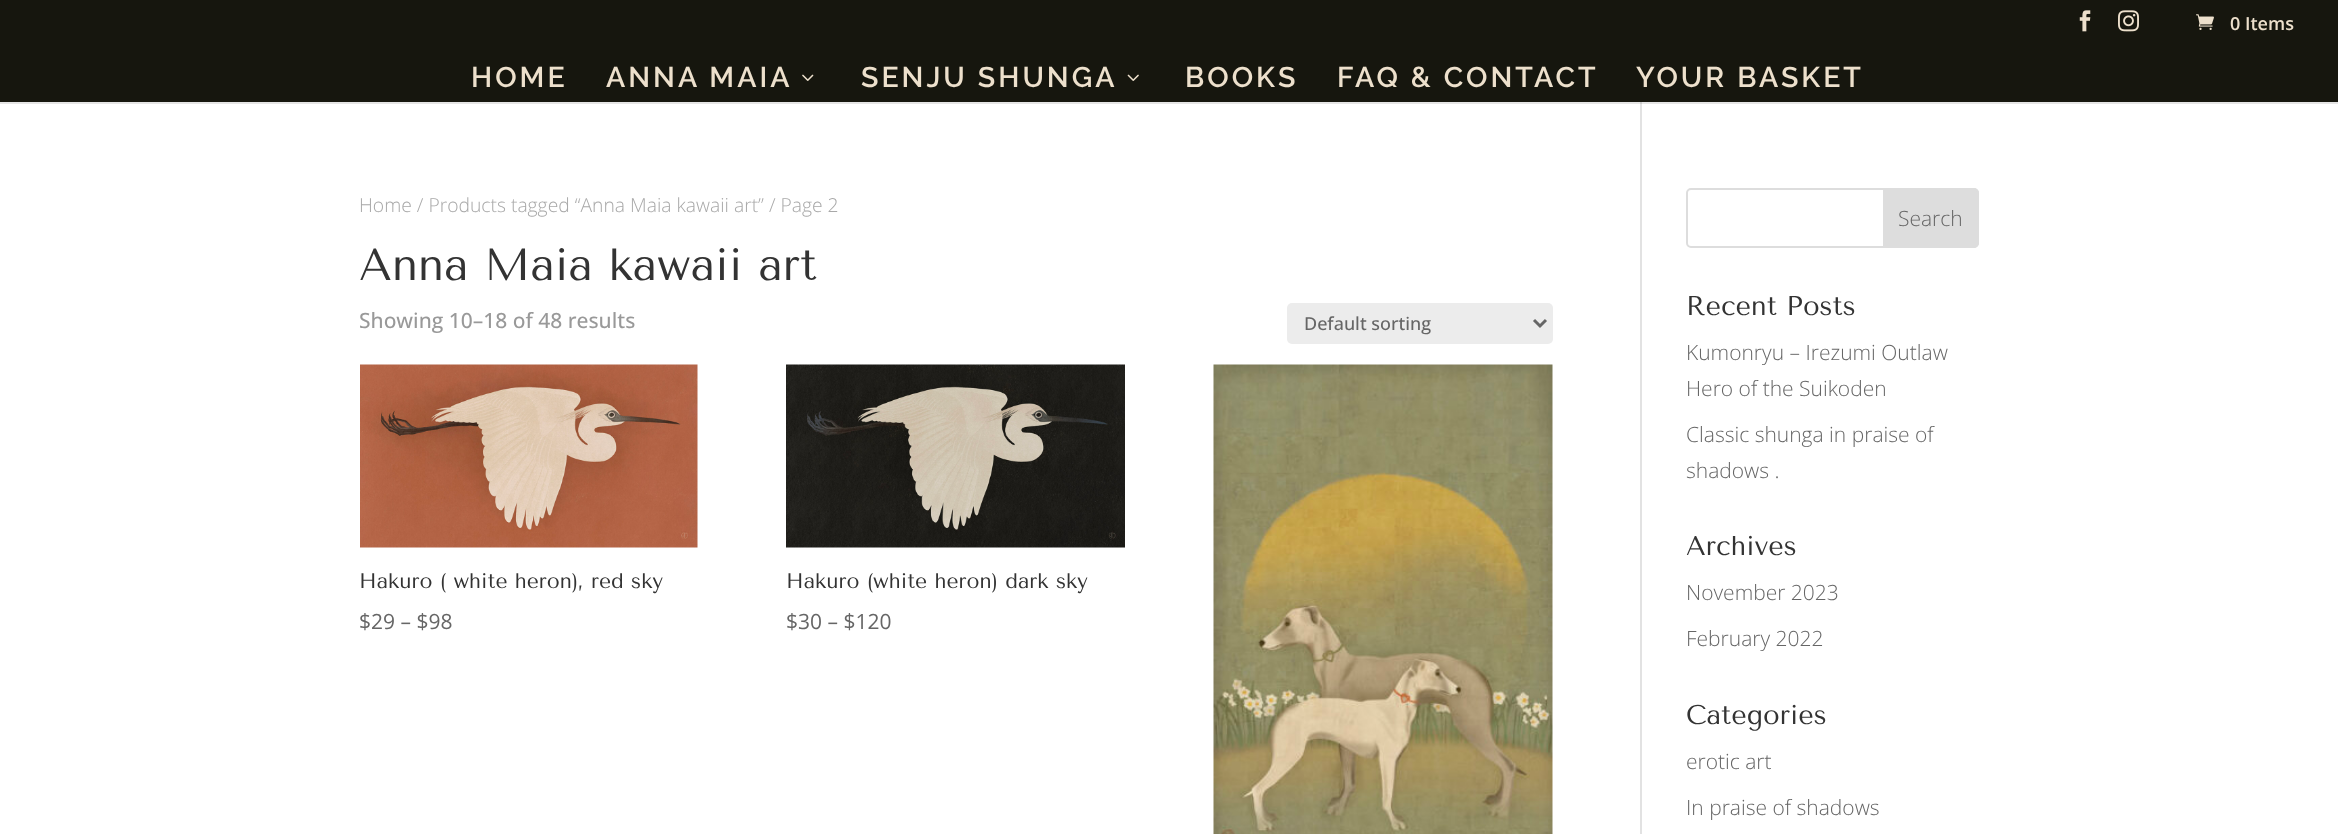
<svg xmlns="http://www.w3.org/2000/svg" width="2338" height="834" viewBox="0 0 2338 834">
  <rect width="100%" height="100%" fill="rgb(255,255,255)"/>
  <rect x="1640" y="101" width="2" height="733" fill="rgb(226,226,226)"/>
  <rect x="0" y="0" width="2338" height="102" fill="rgb(22,22,14)"/>
  <image x="2079" y="10" width="12" height="22" href="pic1.png"/>
  <image x="2118" y="10" width="21" height="22" href="pic2.png"/>
  <image x="2196" y="14" width="18" height="16" href="pic3.png"/>
  <text x="2230" y="30" font-family="Open Sans" font-size="18" font-weight="600" fill="rgb(237,224,204)">0 Items</text>
  <path d="M0 102V104H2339V51H2338V102Z" fill="rgba(0,0,0,0.1)"/>
  <g font-family="Raleway" font-size="28.5" font-weight="600" letter-spacing="3" fill="rgb(237,224,204)">
    <text x="471" y="87">HOME</text>
    <text x="606" y="87">ANNA MAIA</text>
  </g>
  <image x="802" y="74" width="12" height="7" href="pic4.png"/>
  <text x="861" y="87" font-family="Raleway" font-size="28.5" font-weight="600" letter-spacing="3" fill="rgb(237,224,204)">SENJU SHUNGA</text>
  <image x="1127" y="74" width="12" height="7" href="pic5.png"/>
  <g font-family="Raleway" font-size="28.5" font-weight="600" letter-spacing="3" fill="rgb(237,224,204)">
    <text x="1185" y="87">BOOKS</text>
    <text x="1337" y="87">FAQ &amp; CONTACT</text>
    <text x="1636" y="87">YOUR BASKET</text>
  </g>
  <text x="359" y="212" font-family="Open Sans" font-size="19.3" font-weight="300" fill="rgb(168,168,168)">Home / Products tagged “Anna Maia kawaii art” / Page 2</text>
  <text x="359" y="280" font-family="Tenor Sans" font-size="45" fill="rgb(51,51,51)">Anna Maia kawaii art</text>
  <text x="359" y="328" font-family="Open Sans" font-size="21" font-weight="500" fill="rgb(153,153,153)">Showing 10–18 of 48 results</text>
  <rect x="1287" y="303" width="266" height="41" rx="5" fill="rgb(236,236,236)"/>
  <path d="M1534 320L1540 326L1546 320" fill="none" stroke="rgb(102,102,102)" stroke-width="3"/>
  <text x="1304" y="330" font-family="Open Sans" font-size="18" font-weight="500" fill="rgb(102,102,102)">Default sorting</text>
  <image x="360" y="364" width="338" height="184" href="pic6.png"/>
  <text x="359" y="588" font-family="Tenor Sans" font-size="21" fill="rgb(51,51,51)">Hakuro ( white heron), red sky</text>
  <text x="359" y="629" font-family="Open Sans" font-size="21" fill="rgb(102,102,102)">$29 – $98</text>
  <image x="786" y="364" width="339" height="184" href="pic7.png"/>
  <text x="786" y="588" font-family="Tenor Sans" font-size="21" fill="rgb(51,51,51)">Hakuro (white heron) dark sky</text>
  <text x="786" y="629" font-family="Open Sans" font-size="21" fill="rgb(102,102,102)">$30 – $120</text>
  <image x="1213" y="364" width="340" height="470" href="pic8.png"/>
  <rect x="1687" y="189" width="291" height="58" rx="4" fill="none" stroke="rgb(221,221,221)" stroke-width="2"/>
  <path d="M1884 189H1974C1976 189 1978 191 1978 193V243C1978 245 1976 247 1974 247H1884Z" fill="rgb(221,221,221)" stroke="rgb(221,221,221)" stroke-width="2"/>
  <text x="1898" y="226" font-family="Open Sans" font-size="21" font-weight="300" fill="rgb(102,102,102)">Search</text>
  <text x="1686" y="315" font-family="Tenor Sans" font-size="27" fill="rgb(51,51,51)">Recent Posts</text>
  <g font-family="Open Sans" font-size="21" font-weight="300" fill="rgb(102,102,102)">
    <text>
      <tspan x="1686" y="360">Kumonryu – Irezumi Outlaw</tspan>
      <tspan x="1686" y="396">Hero of the Suikoden</tspan>
    </text>
    <text>
      <tspan x="1686" y="442">Classic shunga in praise of</tspan>
      <tspan x="1686" y="478">shadows .</tspan>
    </text>
  </g>
  <text x="1686" y="555" font-family="Tenor Sans" font-size="27" fill="rgb(51,51,51)">Archives</text>
  <g font-family="Open Sans" font-size="21" font-weight="300" fill="rgb(102,102,102)">
    <text x="1686" y="600">November 2023</text>
    <text x="1686" y="646">February 2022</text>
  </g>
  <text x="1686" y="724" font-family="Tenor Sans" font-size="27" fill="rgb(51,51,51)">Categories</text>
  <g font-family="Open Sans" font-size="21" font-weight="300" fill="rgb(102,102,102)">
    <text x="1686" y="769">erotic art</text>
    <text x="1686" y="815">In praise of shadows</text>
  </g>
</svg>
